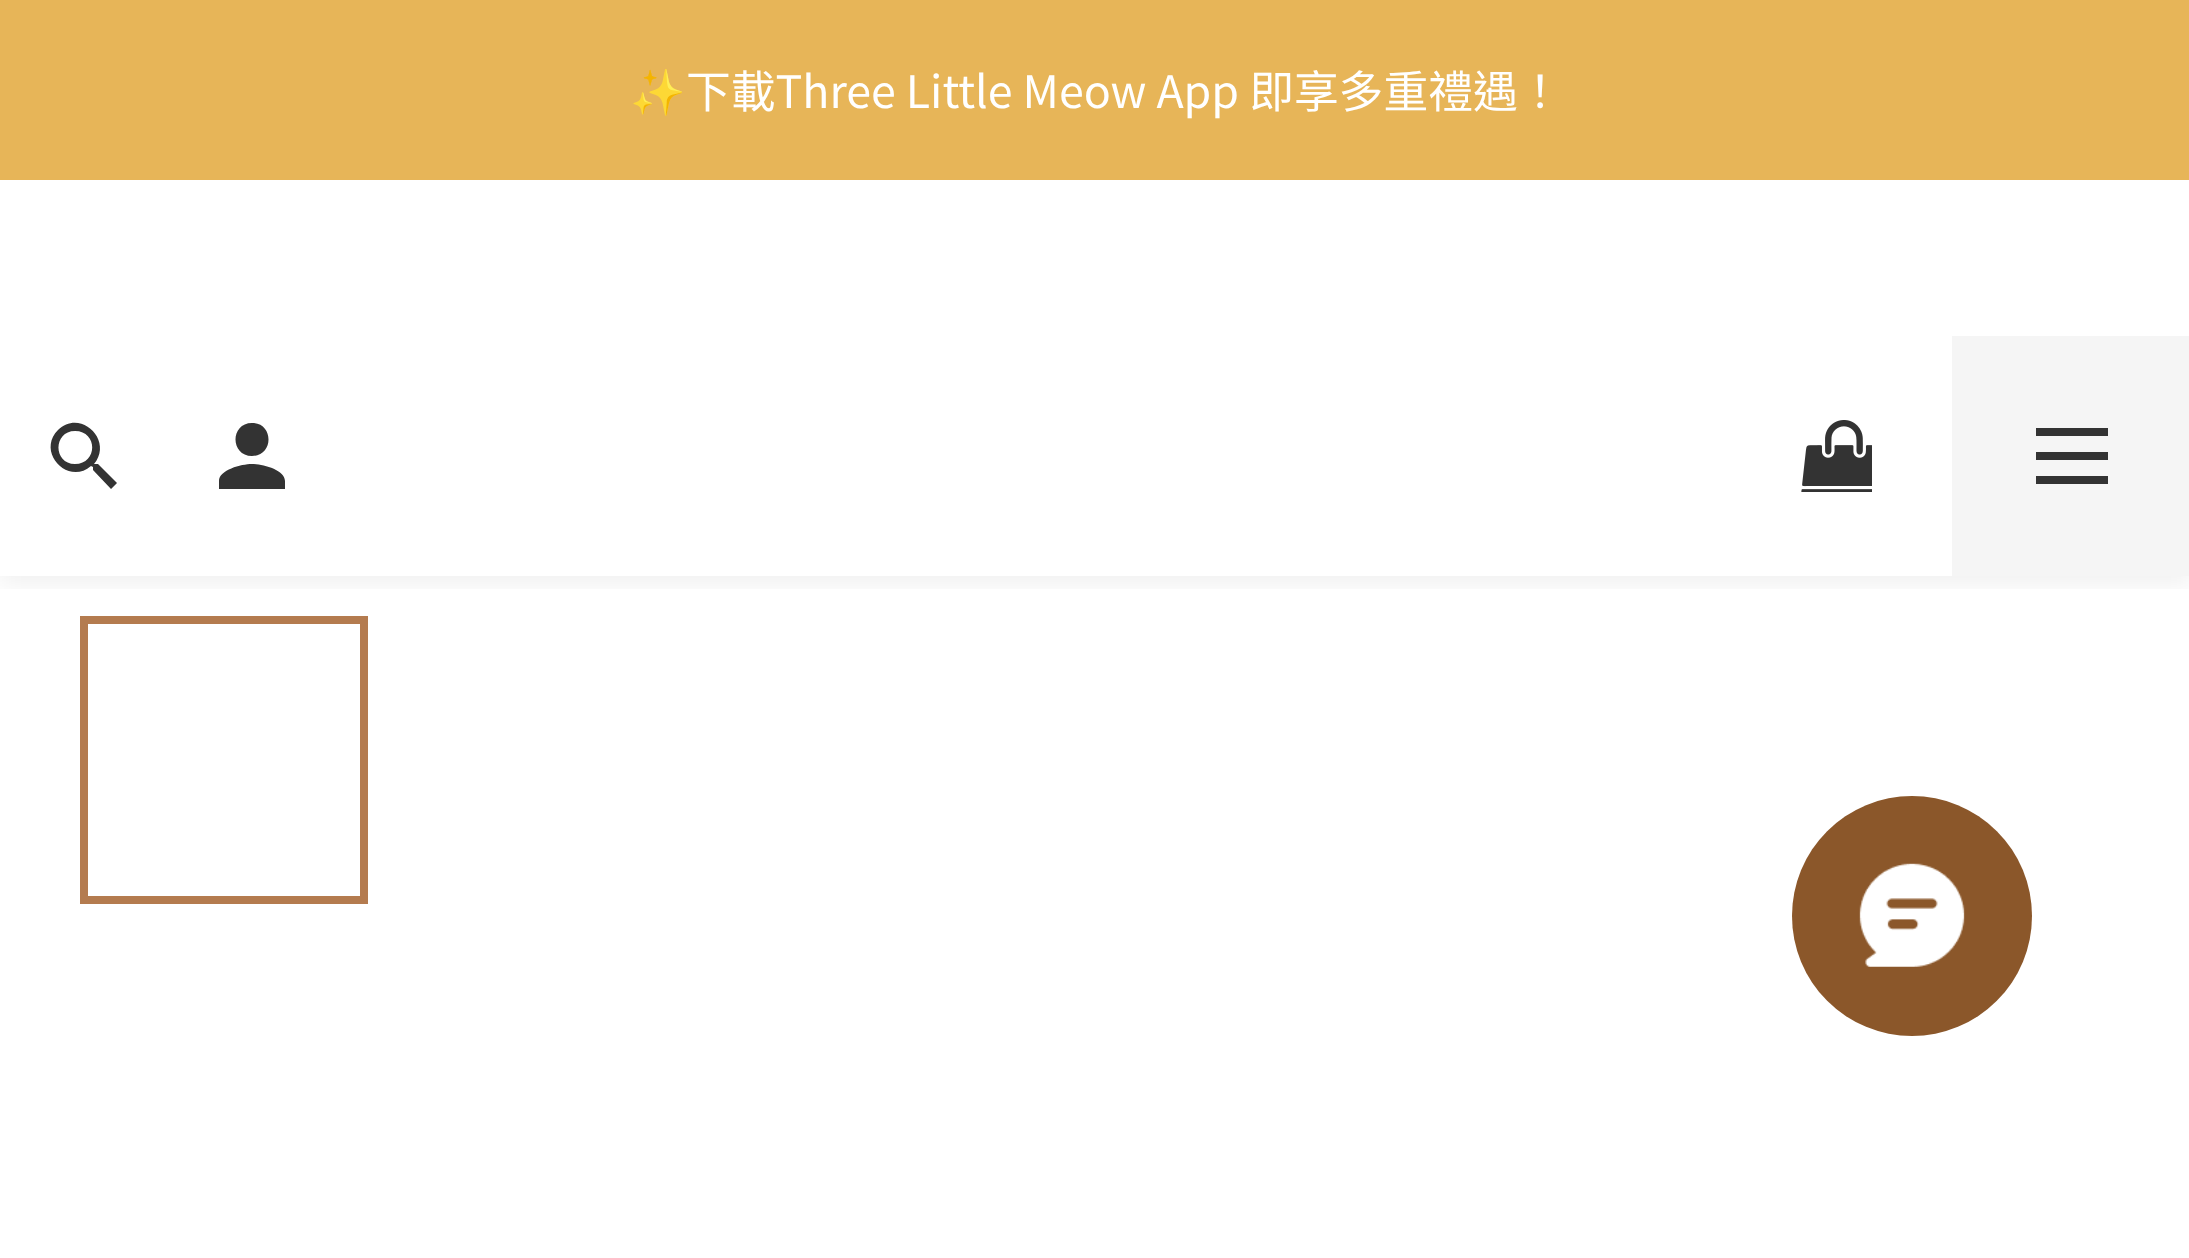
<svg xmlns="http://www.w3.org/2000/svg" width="2189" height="1258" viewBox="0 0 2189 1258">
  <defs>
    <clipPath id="clip1"><rect x="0" y="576" width="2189" height="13"/></clipPath>
  </defs>
  <rect width="100%" height="100%" fill="rgb(255,255,255)"/>
  <rect x="0" y="0" width="2189" height="180" fill="rgb(231,181,88)"/>
  <text x="630" y="108" font-family="Noto Color Emoji" font-size="44.75" fill="rgb(255,255,255)">✨</text>
  <text x="686" y="108" font-family="Noto Sans TC" font-size="44.75" fill="rgb(255,255,255)">下載Three Little Meow App 即享多重禮遇！</text>
  <rect x="84" y="620" width="280" height="280" fill="none" stroke="rgb(180,123,79)" stroke-width="8"/>
  <g clip-path="url(#clip1)">
    <rect x="0" y="188" width="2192" height="396" fill="rgba(0,0,0,0.06)" filter="blur(12px)"/>
  </g>
  <path d="M98 464H95H94C114 440 80 408 58 430C36 452 68 486 91 466L93 467V470L111 489L117 483ZM75 464C53 464 53 431 75 431C98 431 98 464 75 464Z" fill="rgb(51,51,51)"/>
  <path d="M252 456C274 456 274 423 252 423C230 423 230 456 252 456ZM252 464C241 464 219 470 219 481V489H285V481C285 470 263 464 252 464Z" fill="rgb(51,51,51)"/>
  <image x="1801" y="420" width="71" height="72" href="pic1.png"/>
  <rect x="1952" y="336" width="237" height="240" fill="rgb(245,245,245)"/>
  <rect x="2036" y="452" width="72" height="8" fill="rgb(51,51,51)"/>
  <rect x="2036" y="428" width="72" height="8" fill="rgb(51,51,51)"/>
  <rect x="2036" y="476" width="72" height="8" fill="rgb(51,51,51)"/>
  <circle cx="1912" cy="916" r="120" fill="rgb(139,87,42)"/>
  <image x="1859" y="863" width="106" height="104" href="pic2.png"/>
</svg>
